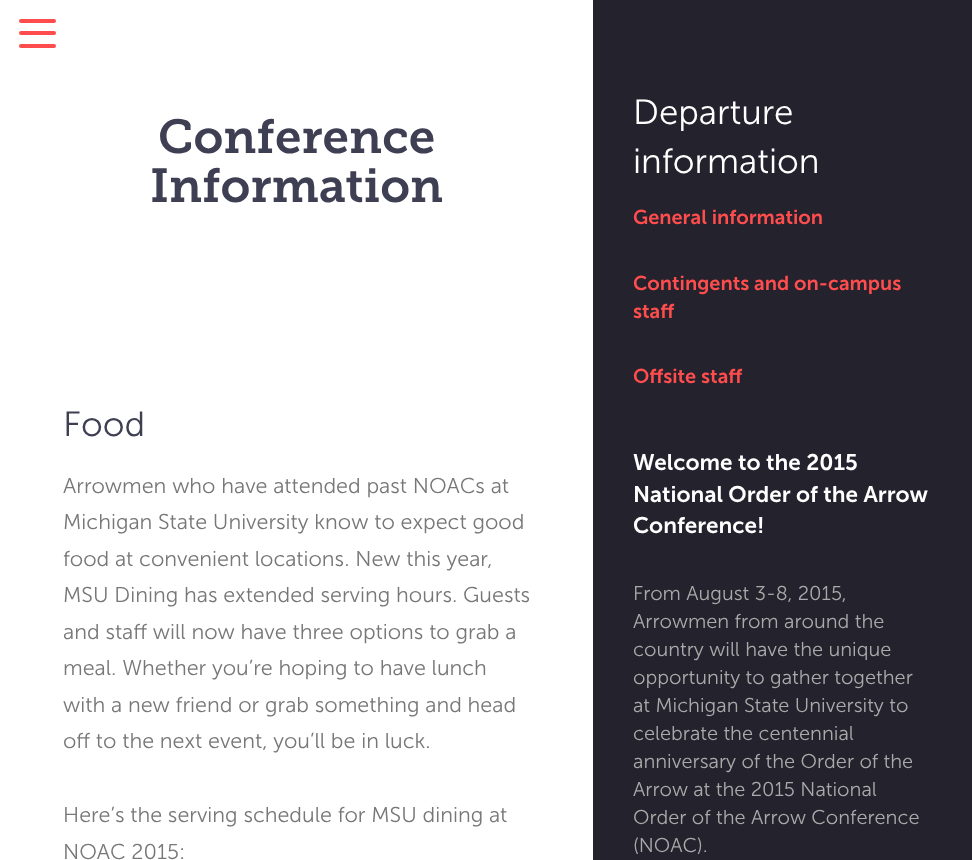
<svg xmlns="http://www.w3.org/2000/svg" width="972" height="860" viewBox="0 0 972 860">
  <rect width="100%" height="100%" fill="rgb(255,255,255)"/>
  <rect x="19" y="31" width="37" height="4" rx="2" fill="rgb(255,77,77)"/>
  <rect x="19" y="19" width="37" height="4" rx="2" fill="rgb(255,77,77)"/>
  <rect x="19" y="44" width="37" height="4" rx="2" fill="rgb(255,77,77)"/>
  <g font-family="'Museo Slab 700'" font-size="47.5" font-weight="600" fill="rgb(63,63,83)">
    <text x="158" y="153">Conference</text>
    <text x="150" y="202">Information</text>
  </g>
  <text x="63" y="436" font-family="'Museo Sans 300'" font-size="35" font-weight="300" fill="rgb(63,63,83)">Food</text>
  <g font-family="'Museo Sans 300'" font-size="21.5" font-weight="300" fill="rgb(119,119,119)">
    <text>
      <tspan x="63" y="493">Arrowmen who have attended past NOACs at</tspan>
      <tspan x="63" y="529">Michigan State University know to expect good</tspan>
      <tspan x="63" y="566">food at convenient locations. New this year,</tspan>
      <tspan x="63" y="602">MSU Dining has extended serving hours. Guests</tspan>
      <tspan x="63" y="639">and staff will now have three options to grab a</tspan>
      <tspan x="63" y="675">meal. Whether you’re hoping to have lunch</tspan>
      <tspan x="63" y="712">with a new friend or grab something and head</tspan>
      <tspan x="63" y="748">off to the next event, you’ll be in luck.</tspan>
    </text>
    <text>
      <tspan x="63" y="822">Here’s the serving schedule for MSU dining at</tspan>
      <tspan x="63" y="859">NOAC 2015:</tspan>
    </text>
  </g>
  <rect x="593" y="0" width="379" height="860" fill="rgb(35,34,45)"/>
  <g font-family="'Museo Sans 300'" font-size="35" font-weight="300" fill="rgb(255,255,255)">
    <text>
      <tspan x="633" y="124">Departure</tspan>
      <tspan x="633" y="173">information</tspan>
    </text>
  </g>
  <g font-family="'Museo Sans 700'" font-size="20" font-weight="600" fill="rgb(255,77,77)">
    <text x="633" y="224">General information</text>
    <text>
      <tspan x="633" y="290">Contingents and on-campus</tspan>
      <tspan x="633" y="318">staff</tspan>
    </text>
    <text x="633" y="383">Offsite staff</text>
  </g>
  <g font-family="'Museo Sans 700'" font-size="22.5" font-weight="600" fill="rgb(255,255,255)">
    <text>
      <tspan x="633" y="470">Welcome to the 2015</tspan>
      <tspan x="633" y="502">National Order of the Arrow</tspan>
      <tspan x="633" y="533">Conference!</tspan>
    </text>
  </g>
  <g font-family="'Museo Sans 300'" font-size="20" font-weight="300" fill="rgb(170,170,170)">
    <text>
      <tspan x="633" y="600">From August 3-8, 2015,</tspan>
      <tspan x="633" y="628">Arrowmen from around the</tspan>
      <tspan x="633" y="656">country will have the unique</tspan>
      <tspan x="633" y="684">opportunity to gather together</tspan>
      <tspan x="633" y="712">at Michigan State University to</tspan>
      <tspan x="633" y="740">celebrate the centennial</tspan>
      <tspan x="633" y="768">anniversary of the Order of the</tspan>
      <tspan x="633" y="796">Arrow at the 2015 National</tspan>
      <tspan x="633" y="824">Order of the Arrow Conference</tspan>
      <tspan x="633" y="852">(NOAC).</tspan>
    </text>
  </g>
</svg>
